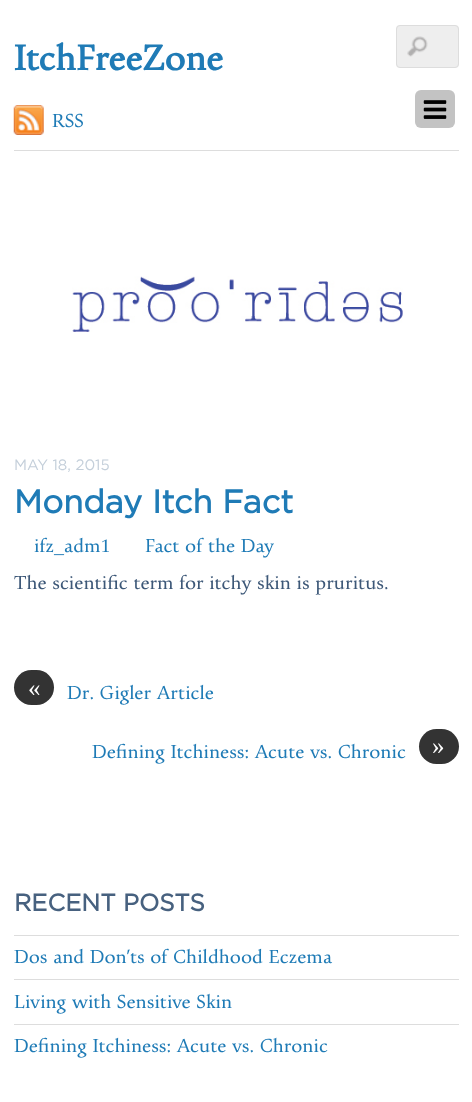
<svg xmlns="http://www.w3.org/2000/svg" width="472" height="1102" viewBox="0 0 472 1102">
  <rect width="100%" height="100%" fill="rgb(255,255,255)"/>
  <rect x="14" y="150" width="445" height="1" fill="rgb(221,221,221)"/>
  <text x="14" y="70" font-family="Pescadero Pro" font-size="37.5" font-weight="bold" fill="rgb(31,123,182)">ItchFreeZone</text>
  <rect x="396" y="25" width="63" height="43" rx="4" fill="rgb(238,238,238)"/>
  <image x="407" y="36" width="21" height="21" href="pic1.png"/>
  <rect x="396.5" y="25.5" width="62" height="42" rx="3.5" fill="none" stroke="rgb(221,221,221)"/>
  <image x="13" y="105" width="31" height="30" href="pic2.png"/>
  <text x="52" y="127" font-family="Pescadero Pro" font-size="20" fill="rgb(31,123,182)">RSS</text>
  <rect x="415" y="90" width="40" height="38" rx="6" fill="rgb(195,195,195)"/>
  <image x="423" y="100" width="24" height="19" href="pic3.png"/>
  <image x="72" y="276" width="331" height="56" href="pic4.png"/>
  <text x="14" y="470" font-family="Gotham" font-size="15" fill="rgb(196,207,218)">MAY 18, 2015</text>
  <text x="14" y="513" font-family="Gotham" font-size="32.5" font-weight="bold" fill="rgb(31,123,182)">Monday Itch Fact</text>
  <g font-family="Pescadero Pro" font-size="20" fill="rgb(31,123,182)">
    <text x="34" y="552">ifz_adm1</text>
    <text x="145" y="552">Fact of the Day</text>
  </g>
  <text x="14" y="589" font-family="Pescadero Pro" font-size="20" fill="rgb(61,88,120)">The scientific term for itchy skin is pruritus.</text>
  <rect x="14" y="670" width="40" height="35" rx="17.5" fill="rgb(51,51,51)"/>
  <text x="28" y="696" font-family="Liberation Serif" font-size="25" fill="rgb(255,255,255)">«</text>
  <g font-family="Pescadero Pro" font-size="20" fill="rgb(31,123,182)">
    <text x="67" y="699">Dr. Gigler Article</text>
    <text x="92" y="758">Defining Itchiness: Acute vs. Chronic</text>
  </g>
  <rect x="419" y="729" width="40" height="35" rx="17.5" fill="rgb(51,51,51)"/>
  <text x="432" y="754" font-family="Liberation Serif" font-size="25" fill="rgb(255,255,255)">»</text>
  <text x="14" y="911" font-family="Gotham" font-size="24" font-weight="bold" fill="rgb(71,97,127)">RECENT POSTS</text>
  <rect x="14" y="935" width="445" height="1" fill="rgb(221,221,221)"/>
  <text x="14" y="963" font-family="Pescadero Pro" font-size="20" fill="rgb(31,123,182)">Dos and Don’ts of Childhood Eczema</text>
  <rect x="14" y="979" width="445" height="1" fill="rgb(221,221,221)"/>
  <text x="14" y="1008" font-family="Pescadero Pro" font-size="20" fill="rgb(31,123,182)">Living with Sensitive Skin</text>
  <rect x="14" y="1024" width="445" height="1" fill="rgb(221,221,221)"/>
  <text x="14" y="1052" font-family="Pescadero Pro" font-size="20" fill="rgb(31,123,182)">Defining Itchiness: Acute vs. Chronic</text>
</svg>
